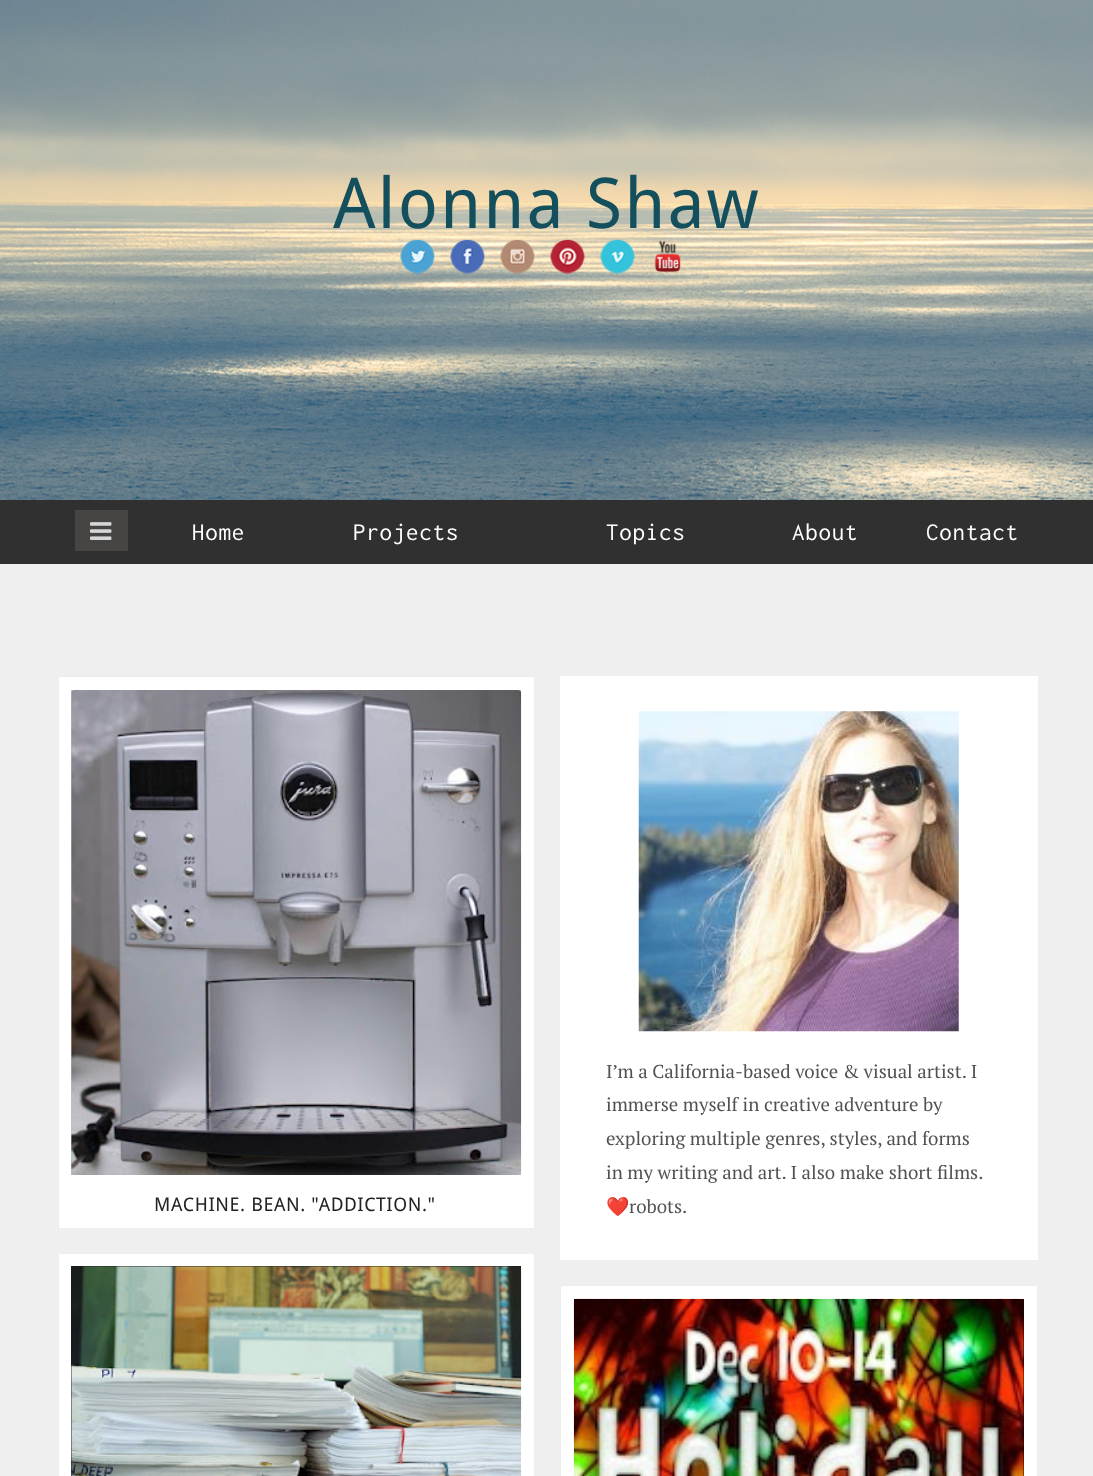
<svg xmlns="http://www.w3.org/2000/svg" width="1093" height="1476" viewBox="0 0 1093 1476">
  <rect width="100%" height="100%" fill="rgb(239,239,239)"/>
  <image x="0" y="0" width="1093" height="500" href="pic1.png"/>
  <text x="333" y="228" font-family="Droid Sans" font-size="70" letter-spacing="2" fill="rgb(19,79,92)">Alonna Shaw</text>
  <image x="400" y="239" width="35" height="35" href="pic2.png"/>
  <image x="450" y="239" width="35" height="35" href="pic3.png"/>
  <image x="500" y="239" width="35" height="35" href="pic4.png"/>
  <image x="550" y="239" width="35" height="35" href="pic5.png"/>
  <image x="600" y="239" width="35" height="35" href="pic6.png"/>
  <image x="654" y="240" width="27" height="32" href="pic7.png"/>
  <rect x="0" y="500" width="1093" height="64" fill="rgb(48,48,48)"/>
  <rect x="75" y="510" width="53" height="41" fill="rgb(71,68,68)"/>
  <image x="90" y="522" width="22" height="18" href="pic8.png"/>
  <g font-family="Inconsolata" font-size="25" letter-spacing="0.75" fill="rgb(255,255,255)">
    <text x="192" y="540">Home</text>
    <text x="353" y="540">Projects</text>
    <text x="606" y="540">Topics</text>
    <text x="792" y="540">About</text>
    <text x="926" y="540">Contact</text>
  </g>
  <rect x="58.5" y="676.5" width="476" height="552" rx="2" fill="rgb(255,255,255)" stroke="rgb(237,237,237)"/>
  <rect x="71" y="690" width="450" height="485" fill="rgb(186,188,201)"/>
  <image x="71" y="690" width="451" height="485" href="pic9.png"/>
  <text x="154" y="1211" font-family="Droid Sans" font-size="18.75" letter-spacing="0.6" fill="rgb(35,35,35)">MACHINE. BEAN. "ADDICTION."</text>
  <rect x="58.5" y="1253.5" width="476" height="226" rx="2" fill="rgb(255,255,255)" stroke="rgb(237,237,237)"/>
  <rect x="71" y="1266" width="450" height="210" fill="rgb(25,29,28)"/>
  <image x="71" y="1266" width="451" height="210" href="pic10.png"/>
  <rect x="560.5" y="1285.5" width="477" height="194" rx="2" fill="rgb(255,255,255)" stroke="rgb(237,237,237)"/>
  <rect x="574" y="1299" width="450" height="177" fill="rgb(33,0,0)"/>
  <image x="573" y="1298" width="451" height="178" href="pic11.png"/>
  <rect x="560" y="676" width="478" height="584" fill="rgb(255,255,255)"/>
  <image x="638" y="711" width="321" height="321" href="pic12.png"/>
  <g font-family="PT Serif" font-size="18.75" fill="rgb(82,82,82)">
    <text>
      <tspan x="606" y="1078">I’m a California-based voice &amp; visual artist. I</tspan>
      <tspan x="606" y="1111">immerse myself in creative adventure by</tspan>
      <tspan x="606" y="1145">exploring multiple genres, styles, and forms</tspan>
      <tspan x="606" y="1179">in my writing and art. I also make short films.</tspan>
    </text>
  </g>
  <text x="606" y="1213" font-family="Noto Color Emoji" font-size="18.75" fill="rgb(82,82,82)">❤️</text>
  <text x="629" y="1213" font-family="PT Serif" font-size="18.75" fill="rgb(82,82,82)">robots.</text>
</svg>
